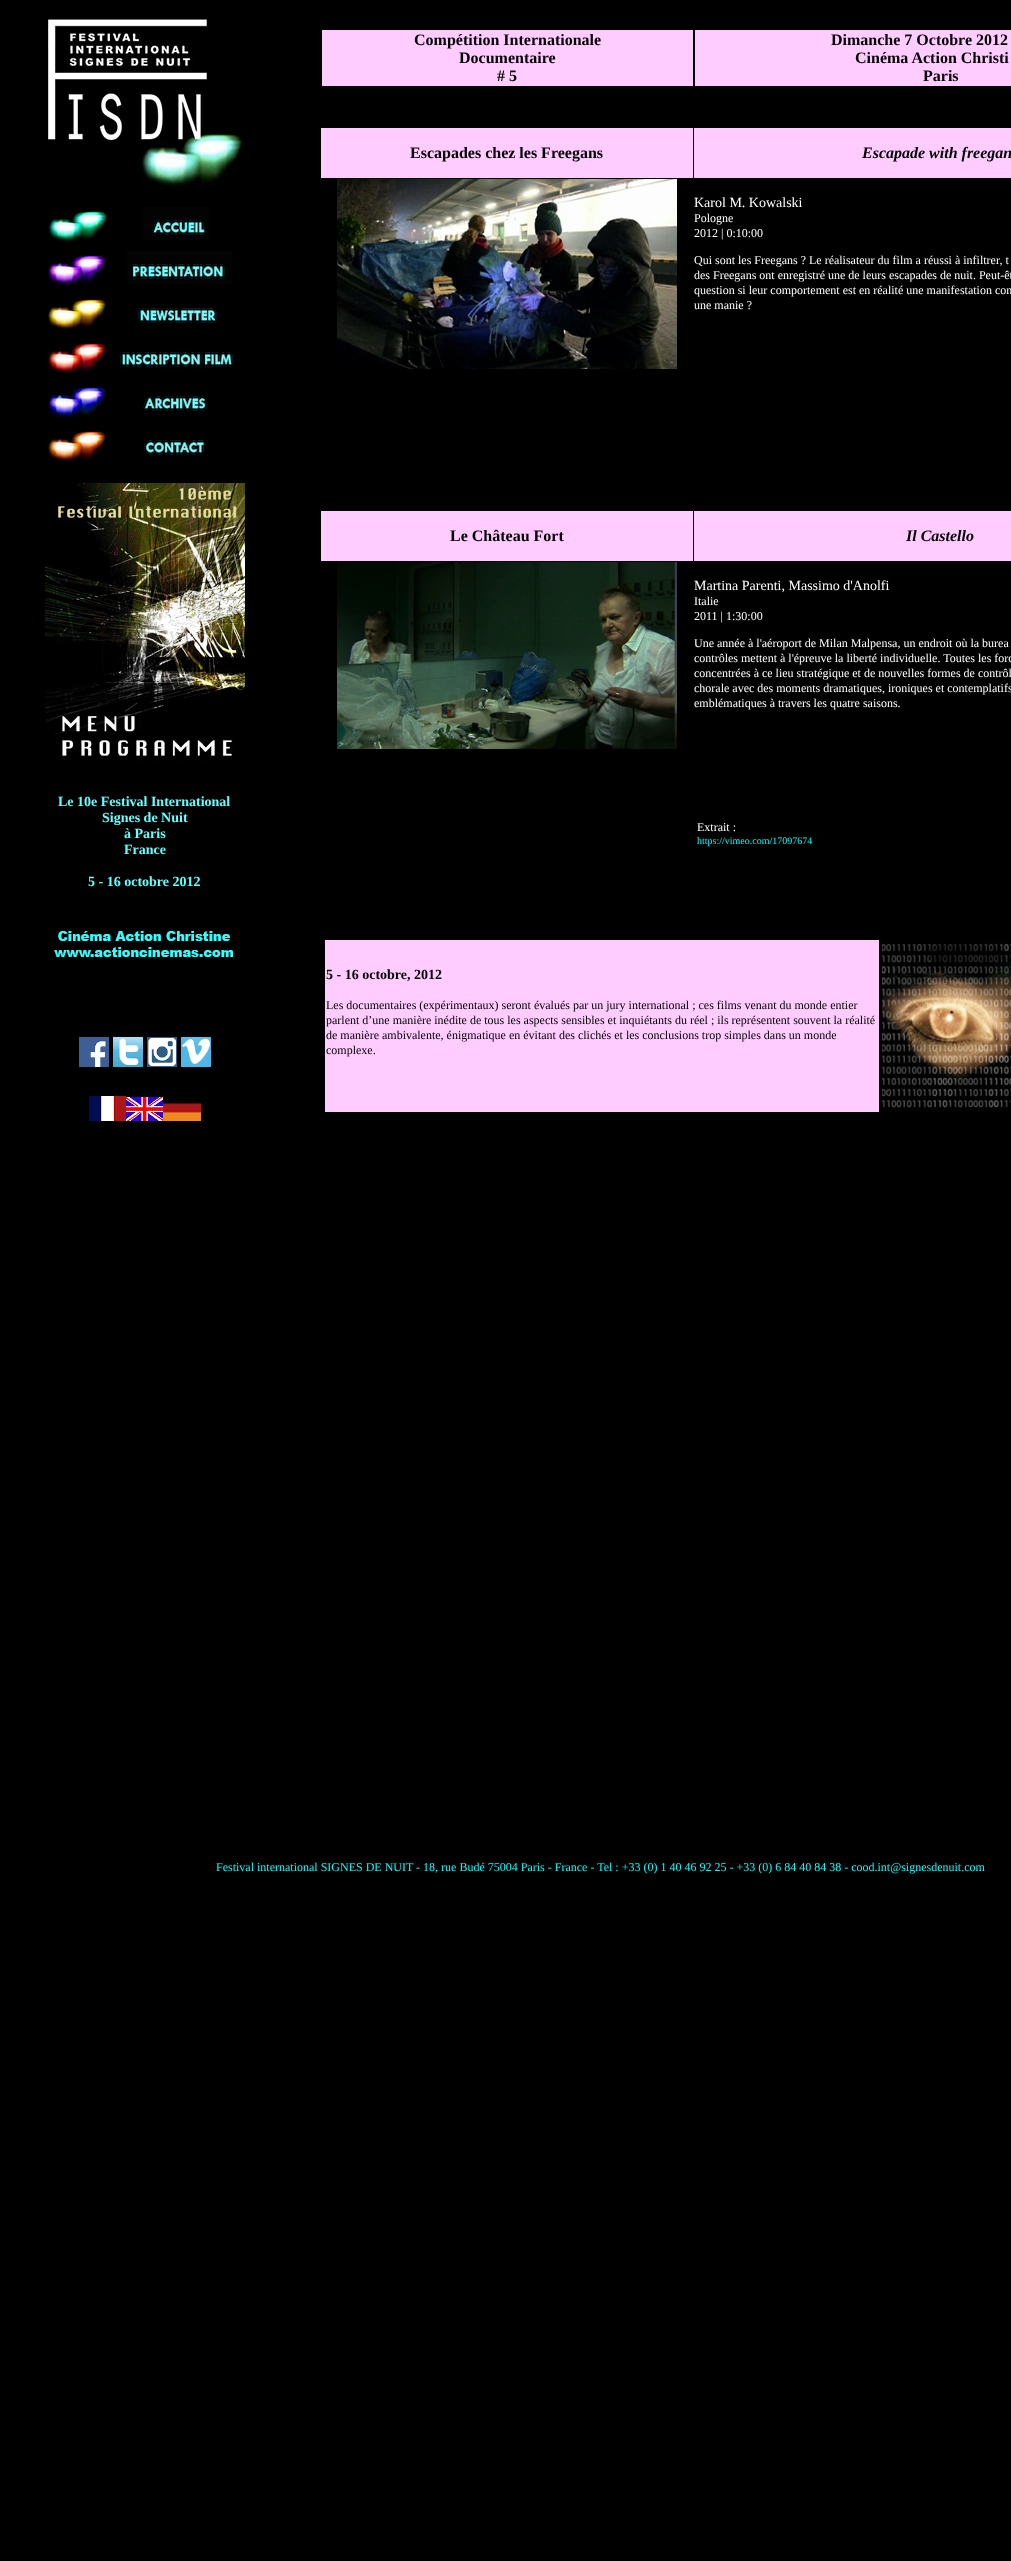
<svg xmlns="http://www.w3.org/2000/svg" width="1011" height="2561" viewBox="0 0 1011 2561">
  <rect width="100%" height="100%" fill="rgb(0,0,0)"/>
  <image x="48" y="18" width="195" height="170" href="pic1.png"/>
  <image x="49" y="211" width="58" height="31" href="pic2.png"/>
  <image x="143" y="207" width="66" height="33" href="pic3.png"/>
  <image x="48" y="255" width="58" height="32" href="pic4.png"/>
  <image x="127" y="251" width="105" height="33" href="pic5.png"/>
  <image x="48" y="299" width="58" height="32" href="pic6.png"/>
  <image x="134" y="303" width="86" height="24" href="pic7.png"/>
  <image x="48" y="343" width="58" height="32" href="pic8.png"/>
  <image x="120" y="348" width="115" height="23" href="pic9.png"/>
  <image x="48" y="387" width="58" height="31" href="pic10.png"/>
  <image x="143" y="392" width="65" height="23" href="pic11.png"/>
  <image x="48" y="431" width="58" height="31" href="pic12.png"/>
  <image x="144" y="437" width="64" height="22" href="pic13.png"/>
  <image x="45" y="483" width="200" height="280" href="pic14.png"/>
  <g font-family="Liberation Serif" font-size="14" font-weight="bold" fill="rgb(102,255,255)">
    <text x="58" y="806">Le 10e Festival International</text>
    <text x="102" y="822">Signes de Nuit</text>
    <text>
      <tspan x="124" y="838">à Paris</tspan>
      <tspan x="124" y="854">France</tspan>
    </text>
    <text x="88" y="886">5 - 16 octobre 2012</text>
  </g>
  <image x="54" y="930" width="179" height="31" href="pic15.png"/>
  <image x="79" y="1037" width="30" height="30" href="pic16.png"/>
  <image x="113" y="1037" width="30" height="30" href="pic17.png"/>
  <image x="147" y="1037" width="30" height="30" href="pic18.png"/>
  <image x="181" y="1037" width="30" height="30" href="pic19.png"/>
  <image x="89" y="1096" width="37" height="25" href="pic20.png"/>
  <image x="126" y="1097" width="37" height="24" href="pic21.png"/>
  <image x="163" y="1103" width="38" height="18" href="pic22.png"/>
  <rect x="322" y="30" width="371" height="56" fill="rgb(255,204,255)"/>
  <g font-family="Liberation Serif" font-size="16" font-weight="bold" fill="rgb(0,0,0)">
    <text x="414" y="45">Compétition Internationale</text>
    <text x="459" y="63">Documentaire</text>
    <text x="497" y="81"># 5</text>
  </g>
  <rect x="695" y="30" width="316" height="56" fill="rgb(255,204,255)"/>
  <g font-family="Liberation Serif" font-size="16" font-weight="bold" fill="rgb(0,0,0)">
    <text x="831" y="45">Dimanche 7 Octobre 2012</text>
    <text x="855" y="63">Cinéma Action Christi</text>
    <text x="923" y="81">Paris</text>
  </g>
  <rect x="321" y="128" width="372" height="50" fill="rgb(255,204,255)"/>
  <text x="410" y="158" font-family="Liberation Serif" font-size="16" font-weight="bold" fill="rgb(0,0,0)">Escapades chez les Freegans</text>
  <rect x="694" y="128" width="317" height="50" fill="rgb(255,204,255)"/>
  <text x="862" y="158" font-family="Liberation Serif" font-size="16" font-weight="bold" font-style="italic" fill="rgb(0,0,0)">Escapade with freegan</text>
  <image x="337" y="179" width="340" height="190" href="pic23.png"/>
  <text x="694" y="207" font-family="Liberation Serif" font-size="14" fill="rgb(255,255,255)">Karol M. Kowalski</text>
  <g font-family="Liberation Serif" font-size="12" fill="rgb(255,255,255)">
    <text>
      <tspan x="694" y="222">Pologne</tspan>
      <tspan x="694" y="237">2012 | 0:10:00</tspan>
    </text>
    <text>
      <tspan x="694" y="264">Qui sont les Freegans ? Le réalisateur du film a réussi à infiltrer, t</tspan>
      <tspan x="694" y="279">des Freegans ont enregistré une de leurs escapades de nuit. Peut-êt</tspan>
      <tspan x="694" y="294">question si leur comportement est en réalité une manifestation con</tspan>
      <tspan x="694" y="309">une manie ?</tspan>
    </text>
  </g>
  <rect x="321" y="511" width="372" height="50" fill="rgb(255,204,255)"/>
  <text x="450" y="541" font-family="Liberation Serif" font-size="16" font-weight="bold" fill="rgb(0,0,0)">Le Château Fort</text>
  <rect x="694" y="511" width="317" height="50" fill="rgb(255,204,255)"/>
  <text x="906" y="541" font-family="Liberation Serif" font-size="16" font-weight="bold" font-style="italic" fill="rgb(0,0,0)">Il Castello</text>
  <image x="337" y="562" width="340" height="187" href="pic24.png"/>
  <text x="694" y="590" font-family="Liberation Serif" font-size="14" fill="rgb(255,255,255)">Martina Parenti, Massimo d'Anolfi</text>
  <g font-family="Liberation Serif" font-size="12" fill="rgb(255,255,255)">
    <text>
      <tspan x="694" y="605">Italie</tspan>
      <tspan x="694" y="620">2011 | 1:30:00</tspan>
    </text>
    <text>
      <tspan x="694" y="647">Une année à l'aéroport de Milan Malpensa, un endroit où la burea</tspan>
      <tspan x="694" y="662">contrôles mettent à l'épreuve la liberté individuelle. Toutes les forc</tspan>
      <tspan x="694" y="677">concentrées à ce lieu stratégique et de nouvelles formes de contrôl</tspan>
      <tspan x="694" y="692">chorale avec des moments dramatiques, ironiques et contemplatifs</tspan>
      <tspan x="694" y="707">emblématiques à travers les quatre saisons.</tspan>
    </text>
    <text x="697" y="831">Extrait :</text>
  </g>
  <text x="697" y="844" font-family="Liberation Serif" font-size="10" fill="rgb(0,255,255)">https://vimeo.com/17097674</text>
  <rect x="325" y="940" width="554" height="172" fill="rgb(255,204,255)"/>
  <text x="326" y="979" font-family="Liberation Serif" font-size="14" font-weight="bold" fill="rgb(0,0,0)">5 - 16 octobre, 2012</text>
  <g font-family="Liberation Serif" font-size="12" fill="rgb(0,0,0)">
    <text>
      <tspan x="326" y="1009">Les documentaires (expérimentaux) seront évalués par un jury international ; ces films venant du monde entier</tspan>
      <tspan x="326" y="1024">parlent d’une manière inédite de tous les aspects sensibles et inquiétants du réel ; ils représentent souvent la réalité</tspan>
      <tspan x="326" y="1039">de manière ambivalente, énigmatique en évitant des clichés et les conclusions trop simples dans un monde</tspan>
      <tspan x="326" y="1054">complexe.</tspan>
    </text>
  </g>
  <image x="882" y="941" width="129" height="170" href="pic25.png"/>
  <text x="216" y="1871" font-family="Liberation Serif" font-size="12" fill="rgb(0,255,255)">Festival international SIGNES DE NUIT - 18, rue Budé 75004 Paris - France - Tel : +33 (0) 1 40 46 92 25 - +33 (0) 6 84 40 84 38 - cood.int@signesdenuit.com</text>
</svg>
